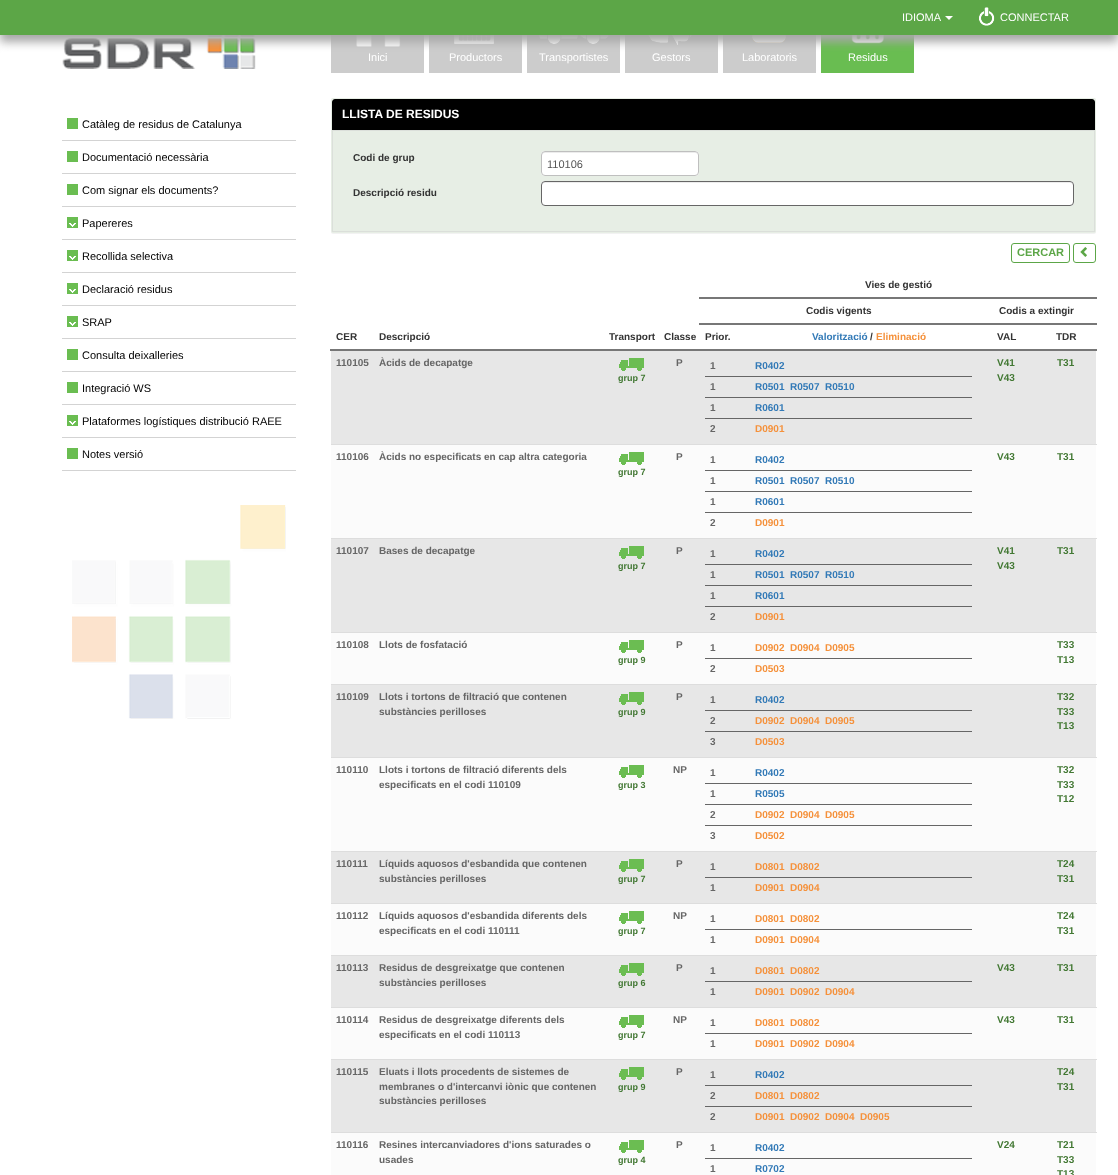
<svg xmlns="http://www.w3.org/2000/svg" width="1118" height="1175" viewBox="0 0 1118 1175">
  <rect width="100%" height="100%" fill="rgb(255,255,255)"/>
  <image x="62" y="35" width="210" height="34" href="pic2.png"/>
  <rect x="331" y="35" width="93" height="38" fill="rgb(204,204,204)"/>
  <image x="356" y="35" width="45" height="12" href="pic3.png"/>
  <rect x="429" y="35" width="93" height="38" fill="rgb(204,204,204)"/>
  <image x="454" y="35" width="40" height="9" href="pic4.png"/>
  <rect x="527" y="35" width="93" height="38" fill="rgb(204,204,204)"/>
  <image x="539" y="35" width="70" height="9" href="pic5.png"/>
  <rect x="625" y="35" width="93" height="38" fill="rgb(204,204,204)"/>
  <image x="648" y="35" width="44" height="10" href="pic6.png"/>
  <rect x="723" y="35" width="93" height="38" fill="rgb(204,204,204)"/>
  <image x="752" y="35" width="34" height="8" href="pic7.png"/>
  <rect x="821" y="35" width="93" height="38" fill="rgb(105,189,81)"/>
  <image x="851" y="35" width="33" height="9" href="pic8.png"/>
  <rect x="0" y="7" width="1118" height="35" fill="rgb(167,167,167)" filter="blur(5px)"/>
  <rect x="0" y="0" width="1118" height="35" fill="rgb(92,166,71)"/>
  <text x="902" y="21" font-family="Liberation Sans" font-size="11" fill="rgb(255,255,255)">IDIOMA</text>
  <path d="M945 16H953L949 20Z" fill="rgb(255,255,255)"/>
  <image x="979" y="7" width="16" height="19" href="pic1.png"/>
  <g font-family="Liberation Sans" font-size="11" fill="rgb(255,255,255)">
    <text x="1000" y="21">CONNECTAR</text>
    <text x="368" y="61">Inici</text>
    <text x="449" y="61">Productors</text>
    <text x="539" y="61">Transportistes</text>
    <text x="652" y="61">Gestors</text>
    <text x="742" y="61">Laboratoris</text>
    <text x="848" y="61">Residus</text>
  </g>
  <image x="72" y="505" width="214" height="214" href="pic9.png"/>
  <rect x="67" y="118" width="11" height="11" fill="rgb(106,189,81)"/>
  <rect x="62" y="140" width="234" height="1" fill="rgb(211,211,211)"/>
  <text x="82" y="128" font-family="Liberation Sans" font-size="11" fill="rgb(0,0,0)">Catàleg de residus de Catalunya</text>
  <rect x="67" y="151" width="11" height="11" fill="rgb(106,189,81)"/>
  <rect x="62" y="173" width="234" height="1" fill="rgb(211,211,211)"/>
  <text x="82" y="161" font-family="Liberation Sans" font-size="11" fill="rgb(0,0,0)">Documentació necessària</text>
  <rect x="67" y="184" width="11" height="11" fill="rgb(106,189,81)"/>
  <rect x="62" y="206" width="234" height="1" fill="rgb(211,211,211)"/>
  <text x="82" y="194" font-family="Liberation Sans" font-size="11" fill="rgb(0,0,0)">Com signar els documents?</text>
  <rect x="67" y="217" width="11" height="11" fill="rgb(106,189,81)"/>
  <rect x="62" y="239" width="234" height="1" fill="rgb(211,211,211)"/>
  <image x="69" y="223" width="7" height="4" href="pic10.png"/>
  <text x="82" y="227" font-family="Liberation Sans" font-size="11" fill="rgb(0,0,0)">Papereres</text>
  <rect x="67" y="250" width="11" height="11" fill="rgb(106,189,81)"/>
  <rect x="62" y="272" width="234" height="1" fill="rgb(211,211,211)"/>
  <image x="69" y="256" width="7" height="4" href="pic10.png"/>
  <text x="82" y="260" font-family="Liberation Sans" font-size="11" fill="rgb(0,0,0)">Recollida selectiva</text>
  <rect x="67" y="283" width="11" height="11" fill="rgb(106,189,81)"/>
  <rect x="62" y="305" width="234" height="1" fill="rgb(211,211,211)"/>
  <image x="69" y="289" width="7" height="4" href="pic10.png"/>
  <text x="82" y="293" font-family="Liberation Sans" font-size="11" fill="rgb(0,0,0)">Declaració residus</text>
  <rect x="67" y="316" width="11" height="11" fill="rgb(106,189,81)"/>
  <rect x="62" y="338" width="234" height="1" fill="rgb(211,211,211)"/>
  <image x="69" y="322" width="7" height="4" href="pic10.png"/>
  <text x="82" y="326" font-family="Liberation Sans" font-size="11" fill="rgb(0,0,0)">SRAP</text>
  <rect x="67" y="349" width="11" height="11" fill="rgb(106,189,81)"/>
  <rect x="62" y="371" width="234" height="1" fill="rgb(211,211,211)"/>
  <text x="82" y="359" font-family="Liberation Sans" font-size="11" fill="rgb(0,0,0)">Consulta deixalleries</text>
  <rect x="67" y="382" width="11" height="11" fill="rgb(106,189,81)"/>
  <rect x="62" y="404" width="234" height="1" fill="rgb(211,211,211)"/>
  <text x="82" y="392" font-family="Liberation Sans" font-size="11" fill="rgb(0,0,0)">Integració WS</text>
  <rect x="67" y="415" width="11" height="11" fill="rgb(106,189,81)"/>
  <rect x="62" y="437" width="234" height="1" fill="rgb(211,211,211)"/>
  <image x="69" y="421" width="7" height="4" href="pic10.png"/>
  <text x="82" y="425" font-family="Liberation Sans" font-size="11" fill="rgb(0,0,0)">Plataformes logístiques distribució RAEE</text>
  <rect x="67" y="448" width="11" height="11" fill="rgb(106,189,81)"/>
  <rect x="62" y="470" width="234" height="1" fill="rgb(211,211,211)"/>
  <text x="82" y="458" font-family="Liberation Sans" font-size="11" fill="rgb(0,0,0)">Notes versió</text>
  <rect x="331" y="99" width="765" height="135" rx="2" fill="rgba(0,0,0,0.05)" filter="blur(0.5px)"/>
  <rect x="331" y="98" width="765" height="135" rx="2" fill="rgb(231,238,229)"/>
  <path d="M335 99H1092C1093.5 99 1095 100.5 1095 102V130H332V102C332 100.5 333.5 99 335 99Z" fill="rgb(0,0,0)"/>
  <text x="342" y="118" font-family="Liberation Sans" font-size="12" font-weight="bold" fill="rgb(255,255,255)">LLISTA DE RESIDUS</text>
  <rect x="332.5" y="130.5" width="762" height="101" fill="none" stroke="rgb(219,223,218)"/>
  <text x="353" y="161" font-family="Liberation Sans" font-size="10" font-weight="bold" fill="rgb(51,51,51)">Codi de grup</text>
  <rect x="541" y="151" width="158" height="25" rx="4" fill="rgb(255,255,255)"/>
  <path d="M545 153H695C697 153 698 154 698 156C698 154 697 152 695 152H544C542 152 542 154 542 156C542 154 543 153 545 153Z" fill="rgb(236,236,236)"/>
  <rect x="541.5" y="151.5" width="157" height="24" rx="3.5" fill="none" stroke="rgb(191,191,191)"/>
  <text x="547" y="168" font-family="Liberation Sans" font-size="11" fill="rgb(85,85,85)">110106</text>
  <text x="353" y="196" font-family="Liberation Sans" font-size="10" font-weight="bold" fill="rgb(51,51,51)">Descripció residu</text>
  <rect x="541" y="181" width="533" height="25" rx="4" fill="rgb(255,255,255)"/>
  <path d="M545 183H1070C1072 183 1073 184 1073 186L1072 183L1070 182H545C543 182 542 184 542 186C542 184 543 183 545 183Z" fill="rgb(236,236,236)"/>
  <rect x="541.5" y="181.5" width="532" height="24" rx="3.5" fill="none" stroke="rgb(102,102,102)"/>
  <rect x="1011.5" y="243.5" width="58" height="19" rx="2.5" fill="none" stroke="rgb(92,166,71)"/>
  <text x="1017" y="256" font-family="Liberation Sans" font-size="11" font-weight="bold" fill="rgb(92,166,71)">CERCAR</text>
  <rect x="1073.5" y="243.5" width="22" height="19" rx="2.5" fill="none" stroke="rgb(92,166,71)"/>
  <image x="1080" y="247" width="7" height="10" href="pic11.png"/>
  <rect x="699" y="297" width="398" height="2" fill="rgb(119,119,119)"/>
  <g font-family="Liberation Sans" font-size="10" font-weight="bold" fill="rgb(51,51,51)">
    <text x="865" y="288">Vies de gestió</text>
    <text x="806" y="314">Codis vigents</text>
  </g>
  <rect x="699" y="323" width="398" height="2" fill="rgb(119,119,119)"/>
  <g font-family="Liberation Sans" font-size="10" font-weight="bold" fill="rgb(51,51,51)">
    <text x="999" y="314">Codis a extingir</text>
    <text x="336" y="340">CER</text>
    <text x="379" y="340">Descripció</text>
    <text x="609" y="340">Transport</text>
    <text x="664" y="340">Classe</text>
    <text x="705" y="340">Prior.</text>
  </g>
  <text x="812" y="340" font-family="Liberation Sans" font-size="10" font-weight="bold" fill="rgb(51,122,183)">Valorització</text>
  <text x="870" y="340" font-family="Liberation Sans" font-size="10" font-weight="bold" fill="rgb(51,51,51)">/</text>
  <text x="876" y="340" font-family="Liberation Sans" font-size="10" font-weight="bold" fill="rgb(245,145,59)">Eliminació</text>
  <text x="997" y="340" font-family="Liberation Sans" font-size="10" font-weight="bold" fill="rgb(51,51,51)">VAL</text>
  <rect x="330" y="349" width="767" height="2" fill="rgb(119,119,119)"/>
  <text x="1056" y="340" font-family="Liberation Sans" font-size="10" font-weight="bold" fill="rgb(51,51,51)">TDR</text>
  <rect x="331" y="351" width="765" height="93" fill="rgb(231,231,231)"/>
  <g font-family="Liberation Sans" font-size="10" font-weight="bold" fill="rgb(102,102,102)">
    <text x="336" y="366">110105</text>
    <text x="379" y="366">Àcids de decapatge</text>
  </g>
  <image x="619" y="358" width="25" height="13" href="pic12.png"/>
  <text x="618" y="381" font-family="Liberation Sans" font-size="9" font-weight="bold" fill="rgb(66,120,51)">grup 7</text>
  <text x="676" y="366" font-family="Liberation Sans" font-size="10" font-weight="bold" fill="rgb(102,102,102)">P</text>
  <rect x="705" y="376" width="267" height="1" fill="rgb(102,102,102)"/>
  <text x="710" y="369" font-family="Liberation Sans" font-size="10" font-weight="bold" fill="rgb(102,102,102)">1</text>
  <text x="755" y="369" font-family="Liberation Sans" font-size="10" font-weight="bold" fill="rgb(51,122,183)">R0402</text>
  <rect x="705" y="397" width="267" height="1" fill="rgb(102,102,102)"/>
  <text x="710" y="390" font-family="Liberation Sans" font-size="10" font-weight="bold" fill="rgb(102,102,102)">1</text>
  <g font-family="Liberation Sans" font-size="10" font-weight="bold" fill="rgb(51,122,183)">
    <text x="755" y="390">R0501</text>
    <text x="790" y="390">R0507</text>
    <text x="825" y="390">R0510</text>
  </g>
  <rect x="705" y="418" width="267" height="1" fill="rgb(102,102,102)"/>
  <text x="710" y="411" font-family="Liberation Sans" font-size="10" font-weight="bold" fill="rgb(102,102,102)">1</text>
  <text x="755" y="411" font-family="Liberation Sans" font-size="10" font-weight="bold" fill="rgb(51,122,183)">R0601</text>
  <text x="710" y="432" font-family="Liberation Sans" font-size="10" font-weight="bold" fill="rgb(102,102,102)">2</text>
  <text x="755" y="432" font-family="Liberation Sans" font-size="10" font-weight="bold" fill="rgb(245,145,59)">D0901</text>
  <g font-family="Liberation Sans" font-size="10" font-weight="bold" fill="rgb(66,120,51)">
    <text>
      <tspan x="997" y="366">V41</tspan>
      <tspan x="997" y="381">V43</tspan>
    </text>
    <text x="1057" y="366">T31</text>
  </g>
  <rect x="331" y="445" width="765" height="93" fill="rgb(251,251,251)"/>
  <g font-family="Liberation Sans" font-size="10" font-weight="bold" fill="rgb(102,102,102)">
    <text x="336" y="460">110106</text>
    <text x="379" y="460">Àcids no especificats en cap altra categoria</text>
  </g>
  <image x="619" y="452" width="25" height="13" href="pic13.png"/>
  <text x="618" y="475" font-family="Liberation Sans" font-size="9" font-weight="bold" fill="rgb(66,120,51)">grup 7</text>
  <text x="676" y="460" font-family="Liberation Sans" font-size="10" font-weight="bold" fill="rgb(102,102,102)">P</text>
  <rect x="705" y="470" width="267" height="1" fill="rgb(102,102,102)"/>
  <text x="710" y="463" font-family="Liberation Sans" font-size="10" font-weight="bold" fill="rgb(102,102,102)">1</text>
  <text x="755" y="463" font-family="Liberation Sans" font-size="10" font-weight="bold" fill="rgb(51,122,183)">R0402</text>
  <rect x="705" y="491" width="267" height="1" fill="rgb(102,102,102)"/>
  <text x="710" y="484" font-family="Liberation Sans" font-size="10" font-weight="bold" fill="rgb(102,102,102)">1</text>
  <g font-family="Liberation Sans" font-size="10" font-weight="bold" fill="rgb(51,122,183)">
    <text x="755" y="484">R0501</text>
    <text x="790" y="484">R0507</text>
    <text x="825" y="484">R0510</text>
  </g>
  <rect x="705" y="512" width="267" height="1" fill="rgb(102,102,102)"/>
  <text x="710" y="505" font-family="Liberation Sans" font-size="10" font-weight="bold" fill="rgb(102,102,102)">1</text>
  <text x="755" y="505" font-family="Liberation Sans" font-size="10" font-weight="bold" fill="rgb(51,122,183)">R0601</text>
  <text x="710" y="526" font-family="Liberation Sans" font-size="10" font-weight="bold" fill="rgb(102,102,102)">2</text>
  <text x="755" y="526" font-family="Liberation Sans" font-size="10" font-weight="bold" fill="rgb(245,145,59)">D0901</text>
  <text x="997" y="460" font-family="Liberation Sans" font-size="10" font-weight="bold" fill="rgb(66,120,51)">V43</text>
  <rect x="331" y="444" width="766" height="1" fill="rgb(221,221,221)"/>
  <text x="1057" y="460" font-family="Liberation Sans" font-size="10" font-weight="bold" fill="rgb(66,120,51)">T31</text>
  <rect x="331" y="539" width="765" height="93" fill="rgb(231,231,231)"/>
  <g font-family="Liberation Sans" font-size="10" font-weight="bold" fill="rgb(102,102,102)">
    <text x="336" y="554">110107</text>
    <text x="379" y="554">Bases de decapatge</text>
  </g>
  <image x="619" y="546" width="25" height="13" href="pic12.png"/>
  <text x="618" y="569" font-family="Liberation Sans" font-size="9" font-weight="bold" fill="rgb(66,120,51)">grup 7</text>
  <text x="676" y="554" font-family="Liberation Sans" font-size="10" font-weight="bold" fill="rgb(102,102,102)">P</text>
  <rect x="705" y="564" width="267" height="1" fill="rgb(102,102,102)"/>
  <text x="710" y="557" font-family="Liberation Sans" font-size="10" font-weight="bold" fill="rgb(102,102,102)">1</text>
  <text x="755" y="557" font-family="Liberation Sans" font-size="10" font-weight="bold" fill="rgb(51,122,183)">R0402</text>
  <rect x="705" y="585" width="267" height="1" fill="rgb(102,102,102)"/>
  <text x="710" y="578" font-family="Liberation Sans" font-size="10" font-weight="bold" fill="rgb(102,102,102)">1</text>
  <g font-family="Liberation Sans" font-size="10" font-weight="bold" fill="rgb(51,122,183)">
    <text x="755" y="578">R0501</text>
    <text x="790" y="578">R0507</text>
    <text x="825" y="578">R0510</text>
  </g>
  <rect x="705" y="606" width="267" height="1" fill="rgb(102,102,102)"/>
  <text x="710" y="599" font-family="Liberation Sans" font-size="10" font-weight="bold" fill="rgb(102,102,102)">1</text>
  <text x="755" y="599" font-family="Liberation Sans" font-size="10" font-weight="bold" fill="rgb(51,122,183)">R0601</text>
  <text x="710" y="620" font-family="Liberation Sans" font-size="10" font-weight="bold" fill="rgb(102,102,102)">2</text>
  <text x="755" y="620" font-family="Liberation Sans" font-size="10" font-weight="bold" fill="rgb(245,145,59)">D0901</text>
  <g font-family="Liberation Sans" font-size="10" font-weight="bold" fill="rgb(66,120,51)">
    <text>
      <tspan x="997" y="554">V41</tspan>
      <tspan x="997" y="569">V43</tspan>
    </text>
  </g>
  <rect x="331" y="538" width="766" height="1" fill="rgb(221,221,221)"/>
  <text x="1057" y="554" font-family="Liberation Sans" font-size="10" font-weight="bold" fill="rgb(66,120,51)">T31</text>
  <rect x="331" y="633" width="765" height="51" fill="rgb(251,251,251)"/>
  <g font-family="Liberation Sans" font-size="10" font-weight="bold" fill="rgb(102,102,102)">
    <text x="336" y="648">110108</text>
    <text x="379" y="648">Llots de fosfatació</text>
  </g>
  <image x="619" y="640" width="25" height="13" href="pic13.png"/>
  <text x="618" y="663" font-family="Liberation Sans" font-size="9" font-weight="bold" fill="rgb(66,120,51)">grup 9</text>
  <text x="676" y="648" font-family="Liberation Sans" font-size="10" font-weight="bold" fill="rgb(102,102,102)">P</text>
  <rect x="705" y="658" width="267" height="1" fill="rgb(102,102,102)"/>
  <text x="710" y="651" font-family="Liberation Sans" font-size="10" font-weight="bold" fill="rgb(102,102,102)">1</text>
  <g font-family="Liberation Sans" font-size="10" font-weight="bold" fill="rgb(245,145,59)">
    <text x="755" y="651">D0902</text>
    <text x="790" y="651">D0904</text>
    <text x="825" y="651">D0905</text>
  </g>
  <text x="710" y="672" font-family="Liberation Sans" font-size="10" font-weight="bold" fill="rgb(102,102,102)">2</text>
  <text x="755" y="672" font-family="Liberation Sans" font-size="10" font-weight="bold" fill="rgb(245,145,59)">D0503</text>
  <rect x="331" y="632" width="766" height="1" fill="rgb(221,221,221)"/>
  <g font-family="Liberation Sans" font-size="10" font-weight="bold" fill="rgb(66,120,51)">
    <text>
      <tspan x="1057" y="648">T33</tspan>
      <tspan x="1057" y="663">T13</tspan>
    </text>
  </g>
  <rect x="331" y="685" width="765" height="72" fill="rgb(231,231,231)"/>
  <g font-family="Liberation Sans" font-size="10" font-weight="bold" fill="rgb(102,102,102)">
    <text x="336" y="700">110109</text>
    <text>
      <tspan x="379" y="700">Llots i tortons de filtració que contenen</tspan>
      <tspan x="379" y="715">substàncies perilloses</tspan>
    </text>
  </g>
  <image x="619" y="692" width="25" height="13" href="pic12.png"/>
  <text x="618" y="715" font-family="Liberation Sans" font-size="9" font-weight="bold" fill="rgb(66,120,51)">grup 9</text>
  <text x="676" y="700" font-family="Liberation Sans" font-size="10" font-weight="bold" fill="rgb(102,102,102)">P</text>
  <rect x="705" y="710" width="267" height="1" fill="rgb(102,102,102)"/>
  <text x="710" y="703" font-family="Liberation Sans" font-size="10" font-weight="bold" fill="rgb(102,102,102)">1</text>
  <text x="755" y="703" font-family="Liberation Sans" font-size="10" font-weight="bold" fill="rgb(51,122,183)">R0402</text>
  <rect x="705" y="731" width="267" height="1" fill="rgb(102,102,102)"/>
  <text x="710" y="724" font-family="Liberation Sans" font-size="10" font-weight="bold" fill="rgb(102,102,102)">2</text>
  <g font-family="Liberation Sans" font-size="10" font-weight="bold" fill="rgb(245,145,59)">
    <text x="755" y="724">D0902</text>
    <text x="790" y="724">D0904</text>
    <text x="825" y="724">D0905</text>
  </g>
  <text x="710" y="745" font-family="Liberation Sans" font-size="10" font-weight="bold" fill="rgb(102,102,102)">3</text>
  <text x="755" y="745" font-family="Liberation Sans" font-size="10" font-weight="bold" fill="rgb(245,145,59)">D0503</text>
  <rect x="331" y="684" width="766" height="1" fill="rgb(221,221,221)"/>
  <g font-family="Liberation Sans" font-size="10" font-weight="bold" fill="rgb(66,120,51)">
    <text>
      <tspan x="1057" y="700">T32</tspan>
      <tspan x="1057" y="715">T33</tspan>
      <tspan x="1057" y="729">T13</tspan>
    </text>
  </g>
  <rect x="331" y="758" width="765" height="93" fill="rgb(251,251,251)"/>
  <g font-family="Liberation Sans" font-size="10" font-weight="bold" fill="rgb(102,102,102)">
    <text x="336" y="773">110110</text>
    <text>
      <tspan x="379" y="773">Llots i tortons de filtració diferents dels</tspan>
      <tspan x="379" y="788">especificats en el codi 110109</tspan>
    </text>
  </g>
  <image x="619" y="765" width="25" height="13" href="pic13.png"/>
  <text x="618" y="788" font-family="Liberation Sans" font-size="9" font-weight="bold" fill="rgb(66,120,51)">grup 3</text>
  <text x="673" y="773" font-family="Liberation Sans" font-size="10" font-weight="bold" fill="rgb(102,102,102)">NP</text>
  <rect x="705" y="783" width="267" height="1" fill="rgb(102,102,102)"/>
  <text x="710" y="776" font-family="Liberation Sans" font-size="10" font-weight="bold" fill="rgb(102,102,102)">1</text>
  <text x="755" y="776" font-family="Liberation Sans" font-size="10" font-weight="bold" fill="rgb(51,122,183)">R0402</text>
  <rect x="705" y="804" width="267" height="1" fill="rgb(102,102,102)"/>
  <text x="710" y="797" font-family="Liberation Sans" font-size="10" font-weight="bold" fill="rgb(102,102,102)">1</text>
  <text x="755" y="797" font-family="Liberation Sans" font-size="10" font-weight="bold" fill="rgb(51,122,183)">R0505</text>
  <rect x="705" y="825" width="267" height="1" fill="rgb(102,102,102)"/>
  <text x="710" y="818" font-family="Liberation Sans" font-size="10" font-weight="bold" fill="rgb(102,102,102)">2</text>
  <g font-family="Liberation Sans" font-size="10" font-weight="bold" fill="rgb(245,145,59)">
    <text x="755" y="818">D0902</text>
    <text x="790" y="818">D0904</text>
    <text x="825" y="818">D0905</text>
  </g>
  <text x="710" y="839" font-family="Liberation Sans" font-size="10" font-weight="bold" fill="rgb(102,102,102)">3</text>
  <text x="755" y="839" font-family="Liberation Sans" font-size="10" font-weight="bold" fill="rgb(245,145,59)">D0502</text>
  <rect x="331" y="757" width="766" height="1" fill="rgb(221,221,221)"/>
  <g font-family="Liberation Sans" font-size="10" font-weight="bold" fill="rgb(66,120,51)">
    <text>
      <tspan x="1057" y="773">T32</tspan>
      <tspan x="1057" y="788">T33</tspan>
      <tspan x="1057" y="802">T12</tspan>
    </text>
  </g>
  <rect x="331" y="852" width="765" height="51" fill="rgb(231,231,231)"/>
  <g font-family="Liberation Sans" font-size="10" font-weight="bold" fill="rgb(102,102,102)">
    <text x="336" y="867">110111</text>
    <text>
      <tspan x="379" y="867">Líquids aquosos d'esbandida que contenen</tspan>
      <tspan x="379" y="882">substàncies perilloses</tspan>
    </text>
  </g>
  <image x="619" y="859" width="25" height="13" href="pic12.png"/>
  <text x="618" y="882" font-family="Liberation Sans" font-size="9" font-weight="bold" fill="rgb(66,120,51)">grup 7</text>
  <text x="676" y="867" font-family="Liberation Sans" font-size="10" font-weight="bold" fill="rgb(102,102,102)">P</text>
  <rect x="705" y="877" width="267" height="1" fill="rgb(102,102,102)"/>
  <text x="710" y="870" font-family="Liberation Sans" font-size="10" font-weight="bold" fill="rgb(102,102,102)">1</text>
  <g font-family="Liberation Sans" font-size="10" font-weight="bold" fill="rgb(245,145,59)">
    <text x="755" y="870">D0801</text>
    <text x="790" y="870">D0802</text>
  </g>
  <text x="710" y="891" font-family="Liberation Sans" font-size="10" font-weight="bold" fill="rgb(102,102,102)">1</text>
  <g font-family="Liberation Sans" font-size="10" font-weight="bold" fill="rgb(245,145,59)">
    <text x="755" y="891">D0901</text>
    <text x="790" y="891">D0904</text>
  </g>
  <rect x="331" y="851" width="766" height="1" fill="rgb(221,221,221)"/>
  <g font-family="Liberation Sans" font-size="10" font-weight="bold" fill="rgb(66,120,51)">
    <text>
      <tspan x="1057" y="867">T24</tspan>
      <tspan x="1057" y="882">T31</tspan>
    </text>
  </g>
  <rect x="331" y="904" width="765" height="51" fill="rgb(251,251,251)"/>
  <g font-family="Liberation Sans" font-size="10" font-weight="bold" fill="rgb(102,102,102)">
    <text x="336" y="919">110112</text>
    <text>
      <tspan x="379" y="919">Líquids aquosos d'esbandida diferents dels</tspan>
      <tspan x="379" y="934">especificats en el codi 110111</tspan>
    </text>
  </g>
  <image x="619" y="911" width="25" height="13" href="pic13.png"/>
  <text x="618" y="934" font-family="Liberation Sans" font-size="9" font-weight="bold" fill="rgb(66,120,51)">grup 7</text>
  <text x="673" y="919" font-family="Liberation Sans" font-size="10" font-weight="bold" fill="rgb(102,102,102)">NP</text>
  <rect x="705" y="929" width="267" height="1" fill="rgb(102,102,102)"/>
  <text x="710" y="922" font-family="Liberation Sans" font-size="10" font-weight="bold" fill="rgb(102,102,102)">1</text>
  <g font-family="Liberation Sans" font-size="10" font-weight="bold" fill="rgb(245,145,59)">
    <text x="755" y="922">D0801</text>
    <text x="790" y="922">D0802</text>
  </g>
  <text x="710" y="943" font-family="Liberation Sans" font-size="10" font-weight="bold" fill="rgb(102,102,102)">1</text>
  <g font-family="Liberation Sans" font-size="10" font-weight="bold" fill="rgb(245,145,59)">
    <text x="755" y="943">D0901</text>
    <text x="790" y="943">D0904</text>
  </g>
  <rect x="331" y="903" width="766" height="1" fill="rgb(221,221,221)"/>
  <g font-family="Liberation Sans" font-size="10" font-weight="bold" fill="rgb(66,120,51)">
    <text>
      <tspan x="1057" y="919">T24</tspan>
      <tspan x="1057" y="934">T31</tspan>
    </text>
  </g>
  <rect x="331" y="956" width="765" height="51" fill="rgb(231,231,231)"/>
  <g font-family="Liberation Sans" font-size="10" font-weight="bold" fill="rgb(102,102,102)">
    <text x="336" y="971">110113</text>
    <text>
      <tspan x="379" y="971">Residus de desgreixatge que contenen</tspan>
      <tspan x="379" y="986">substàncies perilloses</tspan>
    </text>
  </g>
  <image x="619" y="963" width="25" height="13" href="pic12.png"/>
  <text x="618" y="986" font-family="Liberation Sans" font-size="9" font-weight="bold" fill="rgb(66,120,51)">grup 6</text>
  <text x="676" y="971" font-family="Liberation Sans" font-size="10" font-weight="bold" fill="rgb(102,102,102)">P</text>
  <rect x="705" y="981" width="267" height="1" fill="rgb(102,102,102)"/>
  <text x="710" y="974" font-family="Liberation Sans" font-size="10" font-weight="bold" fill="rgb(102,102,102)">1</text>
  <g font-family="Liberation Sans" font-size="10" font-weight="bold" fill="rgb(245,145,59)">
    <text x="755" y="974">D0801</text>
    <text x="790" y="974">D0802</text>
  </g>
  <text x="710" y="995" font-family="Liberation Sans" font-size="10" font-weight="bold" fill="rgb(102,102,102)">1</text>
  <g font-family="Liberation Sans" font-size="10" font-weight="bold" fill="rgb(245,145,59)">
    <text x="755" y="995">D0901</text>
    <text x="790" y="995">D0902</text>
    <text x="825" y="995">D0904</text>
  </g>
  <text x="997" y="971" font-family="Liberation Sans" font-size="10" font-weight="bold" fill="rgb(66,120,51)">V43</text>
  <rect x="331" y="955" width="766" height="1" fill="rgb(221,221,221)"/>
  <text x="1057" y="971" font-family="Liberation Sans" font-size="10" font-weight="bold" fill="rgb(66,120,51)">T31</text>
  <rect x="331" y="1008" width="765" height="51" fill="rgb(251,251,251)"/>
  <g font-family="Liberation Sans" font-size="10" font-weight="bold" fill="rgb(102,102,102)">
    <text x="336" y="1023">110114</text>
    <text>
      <tspan x="379" y="1023">Residus de desgreixatge diferents dels</tspan>
      <tspan x="379" y="1038">especificats en el codi 110113</tspan>
    </text>
  </g>
  <image x="619" y="1015" width="25" height="13" href="pic13.png"/>
  <text x="618" y="1038" font-family="Liberation Sans" font-size="9" font-weight="bold" fill="rgb(66,120,51)">grup 7</text>
  <text x="673" y="1023" font-family="Liberation Sans" font-size="10" font-weight="bold" fill="rgb(102,102,102)">NP</text>
  <rect x="705" y="1033" width="267" height="1" fill="rgb(102,102,102)"/>
  <text x="710" y="1026" font-family="Liberation Sans" font-size="10" font-weight="bold" fill="rgb(102,102,102)">1</text>
  <g font-family="Liberation Sans" font-size="10" font-weight="bold" fill="rgb(245,145,59)">
    <text x="755" y="1026">D0801</text>
    <text x="790" y="1026">D0802</text>
  </g>
  <text x="710" y="1047" font-family="Liberation Sans" font-size="10" font-weight="bold" fill="rgb(102,102,102)">1</text>
  <g font-family="Liberation Sans" font-size="10" font-weight="bold" fill="rgb(245,145,59)">
    <text x="755" y="1047">D0901</text>
    <text x="790" y="1047">D0902</text>
    <text x="825" y="1047">D0904</text>
  </g>
  <text x="997" y="1023" font-family="Liberation Sans" font-size="10" font-weight="bold" fill="rgb(66,120,51)">V43</text>
  <rect x="331" y="1007" width="766" height="1" fill="rgb(221,221,221)"/>
  <text x="1057" y="1023" font-family="Liberation Sans" font-size="10" font-weight="bold" fill="rgb(66,120,51)">T31</text>
  <rect x="331" y="1060" width="765" height="72" fill="rgb(231,231,231)"/>
  <g font-family="Liberation Sans" font-size="10" font-weight="bold" fill="rgb(102,102,102)">
    <text x="336" y="1075">110115</text>
    <text>
      <tspan x="379" y="1075">Eluats i llots procedents de sistemes de</tspan>
      <tspan x="379" y="1090">membranes o d'intercanvi iònic que contenen</tspan>
      <tspan x="379" y="1104">substàncies perilloses</tspan>
    </text>
  </g>
  <image x="619" y="1067" width="25" height="13" href="pic12.png"/>
  <text x="618" y="1090" font-family="Liberation Sans" font-size="9" font-weight="bold" fill="rgb(66,120,51)">grup 9</text>
  <text x="676" y="1075" font-family="Liberation Sans" font-size="10" font-weight="bold" fill="rgb(102,102,102)">P</text>
  <rect x="705" y="1085" width="267" height="1" fill="rgb(102,102,102)"/>
  <text x="710" y="1078" font-family="Liberation Sans" font-size="10" font-weight="bold" fill="rgb(102,102,102)">1</text>
  <text x="755" y="1078" font-family="Liberation Sans" font-size="10" font-weight="bold" fill="rgb(51,122,183)">R0402</text>
  <rect x="705" y="1106" width="267" height="1" fill="rgb(102,102,102)"/>
  <text x="710" y="1099" font-family="Liberation Sans" font-size="10" font-weight="bold" fill="rgb(102,102,102)">2</text>
  <g font-family="Liberation Sans" font-size="10" font-weight="bold" fill="rgb(245,145,59)">
    <text x="755" y="1099">D0801</text>
    <text x="790" y="1099">D0802</text>
  </g>
  <text x="710" y="1120" font-family="Liberation Sans" font-size="10" font-weight="bold" fill="rgb(102,102,102)">2</text>
  <g font-family="Liberation Sans" font-size="10" font-weight="bold" fill="rgb(245,145,59)">
    <text x="755" y="1120">D0901</text>
    <text x="790" y="1120">D0902</text>
    <text x="825" y="1120">D0904</text>
    <text x="860" y="1120">D0905</text>
  </g>
  <rect x="331" y="1059" width="766" height="1" fill="rgb(221,221,221)"/>
  <g font-family="Liberation Sans" font-size="10" font-weight="bold" fill="rgb(66,120,51)">
    <text>
      <tspan x="1057" y="1075">T24</tspan>
      <tspan x="1057" y="1090">T31</tspan>
    </text>
  </g>
  <rect x="331" y="1133" width="765" height="42" fill="rgb(251,251,251)"/>
  <g font-family="Liberation Sans" font-size="10" font-weight="bold" fill="rgb(102,102,102)">
    <text x="336" y="1148">110116</text>
    <text>
      <tspan x="379" y="1148">Resines intercanviadores d'ions saturades o</tspan>
      <tspan x="379" y="1163">usades</tspan>
    </text>
  </g>
  <image x="619" y="1140" width="25" height="13" href="pic13.png"/>
  <text x="618" y="1163" font-family="Liberation Sans" font-size="9" font-weight="bold" fill="rgb(66,120,51)">grup 4</text>
  <text x="676" y="1148" font-family="Liberation Sans" font-size="10" font-weight="bold" fill="rgb(102,102,102)">P</text>
  <rect x="705" y="1158" width="267" height="1" fill="rgb(102,102,102)"/>
  <text x="710" y="1151" font-family="Liberation Sans" font-size="10" font-weight="bold" fill="rgb(102,102,102)">1</text>
  <text x="755" y="1151" font-family="Liberation Sans" font-size="10" font-weight="bold" fill="rgb(51,122,183)">R0402</text>
  <text x="710" y="1172" font-family="Liberation Sans" font-size="10" font-weight="bold" fill="rgb(102,102,102)">1</text>
  <text x="755" y="1172" font-family="Liberation Sans" font-size="10" font-weight="bold" fill="rgb(51,122,183)">R0702</text>
  <text x="997" y="1148" font-family="Liberation Sans" font-size="10" font-weight="bold" fill="rgb(66,120,51)">V24</text>
  <rect x="331" y="1132" width="766" height="1" fill="rgb(221,221,221)"/>
  <g font-family="Liberation Sans" font-size="10" font-weight="bold" fill="rgb(66,120,51)">
    <text>
      <tspan x="1057" y="1148">T21</tspan>
      <tspan x="1057" y="1163">T33</tspan>
      <tspan x="1057" y="1177">T13</tspan>
    </text>
  </g>
</svg>
